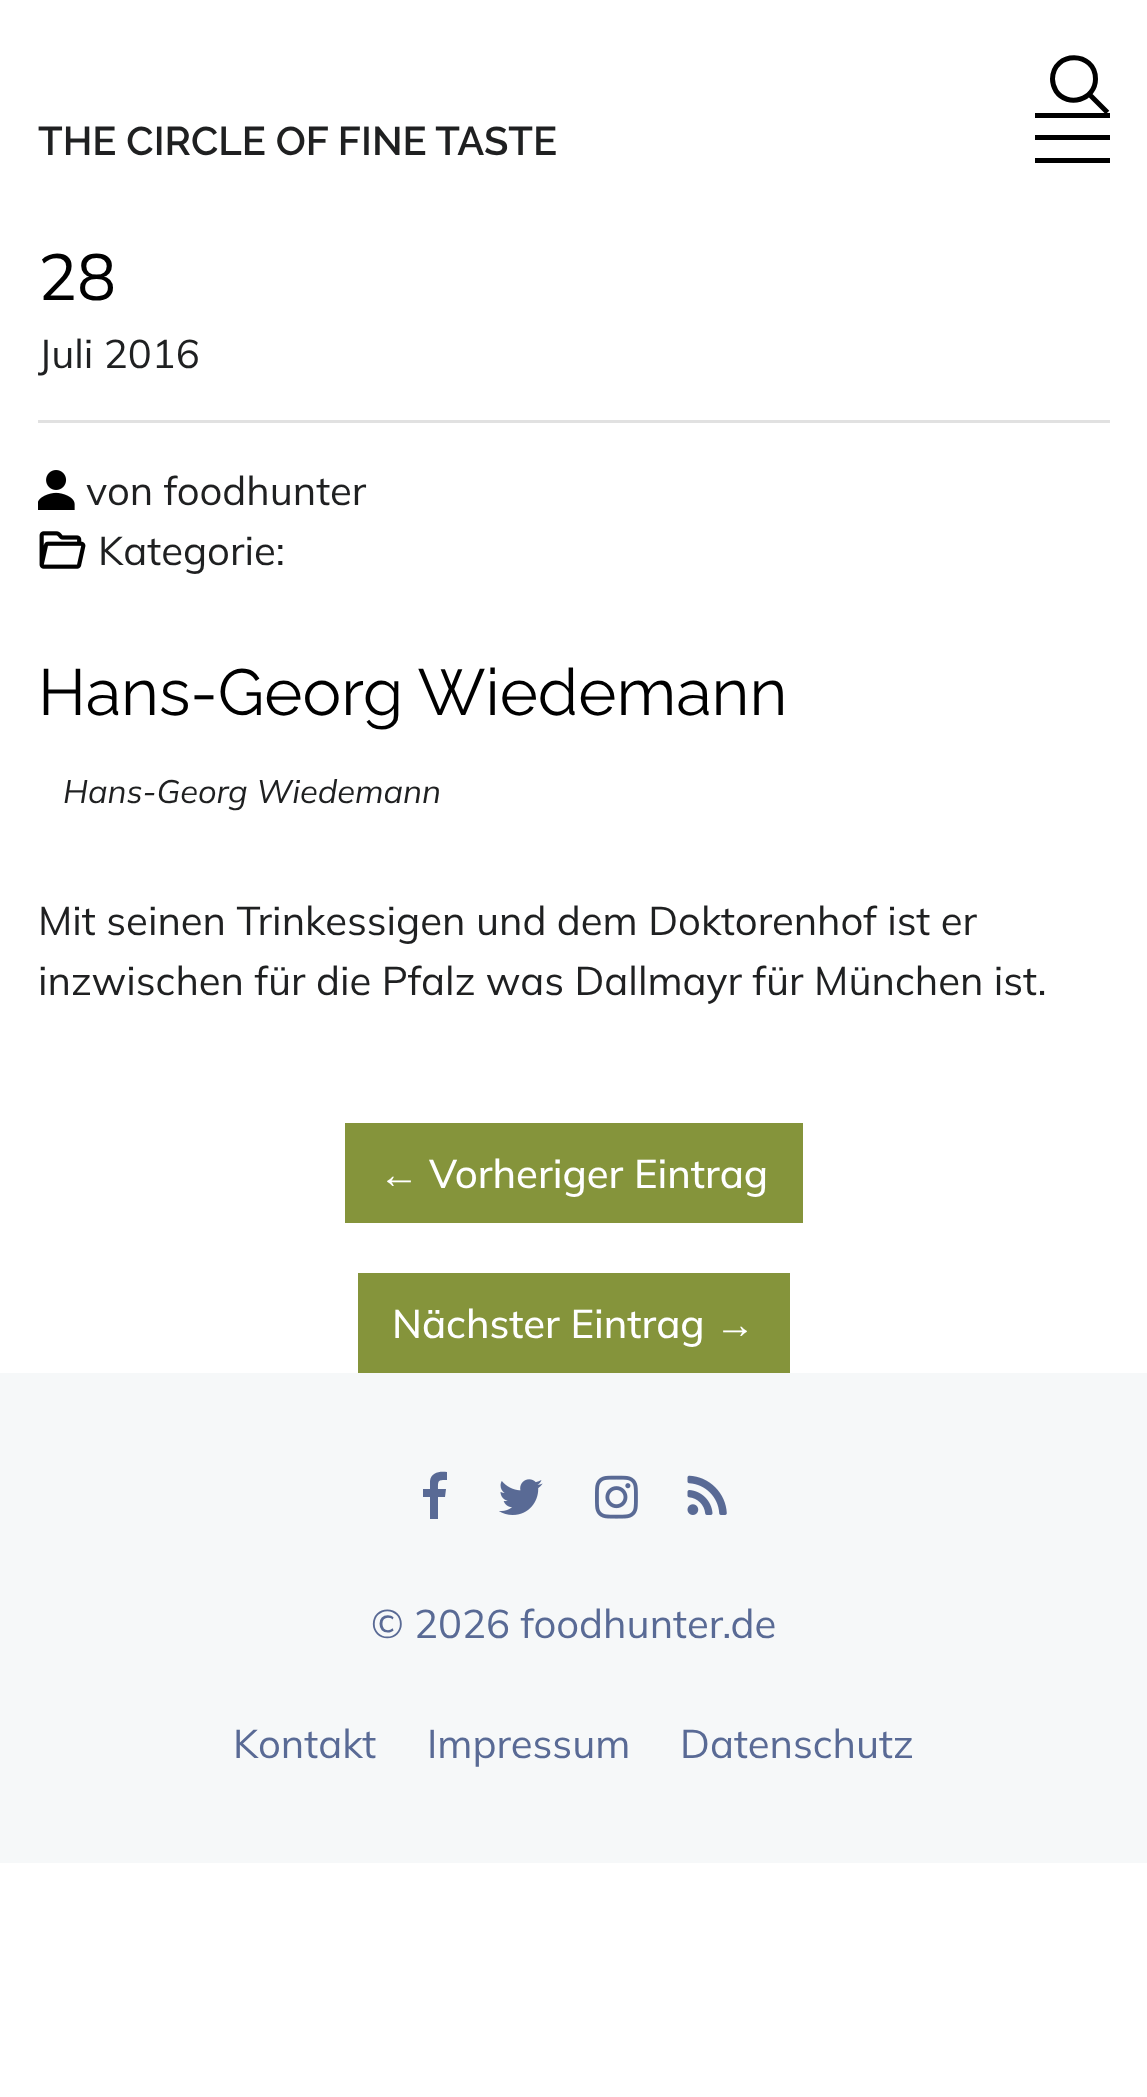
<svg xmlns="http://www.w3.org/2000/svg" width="1147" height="2097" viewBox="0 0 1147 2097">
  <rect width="100%" height="100%" fill="rgb(255,255,255)"/>
  <text x="38" y="155" font-family="Raleway" font-size="40" font-weight="600" fill="rgb(31,32,33)">THE CIRCLE OF FINE TASTE</text>
  <path d="M1107.5 112.5L1089 94M1095.5 79C1095.5 100 1067.5 108 1056 91C1054 87.5 1052.5 83 1052.5 79C1053 50.5 1095.5 51 1095.5 79Z" fill="none" stroke="rgb(0,0,0)" stroke-width="5"/>
  <rect x="1035" y="113" width="75" height="5" fill="rgb(0,0,0)"/>
  <rect x="1035" y="135" width="75" height="5" fill="rgb(0,0,0)"/>
  <rect x="1035" y="158" width="75" height="5" fill="rgb(0,0,0)"/>
  <rect x="38" y="420" width="1072" height="3" fill="rgb(225,225,225)"/>
  <text x="38" y="300" font-family="Mulish" font-size="65" fill="rgb(0,0,0)">28</text>
  <text x="38" y="368" font-family="Mulish" font-size="40" fill="rgb(31,32,33)">Juli 2016</text>
  <image x="38" y="470" width="37" height="40" href="pic1.png"/>
  <text x="86" y="505" font-family="Mulish" font-size="40" fill="rgb(31,32,33)">von foodhunter</text>
  <image x="39" y="531" width="47" height="38" href="pic2.png"/>
  <text x="98" y="565" font-family="Mulish" font-size="40" fill="rgb(31,32,33)">Kategorie:</text>
  <text x="38" y="715" font-family="Raleway" font-size="65" fill="rgb(0,0,0)">Hans-Georg Wiedemann</text>
  <text x="63" y="803" font-family="Mulish" font-size="32.5" font-style="italic" fill="rgb(31,32,33)">Hans-Georg Wiedemann</text>
  <g font-family="Mulish" font-size="40" fill="rgb(31,32,33)">
    <text>
      <tspan x="38" y="935">Mit seinen Trinkessigen und dem Doktorenhof ist er</tspan>
      <tspan x="38" y="995">inzwischen für die Pfalz was Dallmayr für München ist.</tspan>
    </text>
  </g>
  <rect x="345" y="1123" width="458" height="100" fill="rgb(133,148,59)"/>
  <text x="379" y="1188" font-family="Liberation Serif" font-size="40" fill="rgb(255,255,255)">←</text>
  <text x="429" y="1188" font-family="Mulish" font-size="40" font-weight="500" fill="rgb(255,255,255)">Vorheriger Eintrag</text>
  <rect x="358" y="1273" width="432" height="100" fill="rgb(133,148,59)"/>
  <text x="392" y="1338" font-family="Mulish" font-size="40" font-weight="500" fill="rgb(255,255,255)">Nächster Eintrag</text>
  <text x="715" y="1338" font-family="Liberation Serif" font-size="40" fill="rgb(255,255,255)">→</text>
  <rect x="0" y="1373" width="1147" height="490" fill="rgb(246,248,249)"/>
  <path d="M447 1472C440 1471 431 1472 430 1481V1489H423V1497H430V1519H438V1497H445L446 1489H438C438 1480 438 1480 447 1480Z" fill="rgb(89,106,149)"/>
  <image x="499" y="1479" width="44" height="36" href="pic3.png"/>
  <image x="595" y="1475" width="43" height="44" href="pic4.png"/>
  <image x="687" y="1475" width="40" height="40" href="pic5.png"/>
  <g font-family="Mulish" font-size="40" fill="rgb(89,106,149)">
    <text x="371" y="1638">© 2026 foodhunter.de</text>
    <text x="233" y="1758">Kontakt</text>
    <text x="427" y="1758">Impressum</text>
    <text x="680" y="1758">Datenschutz</text>
  </g>
</svg>
